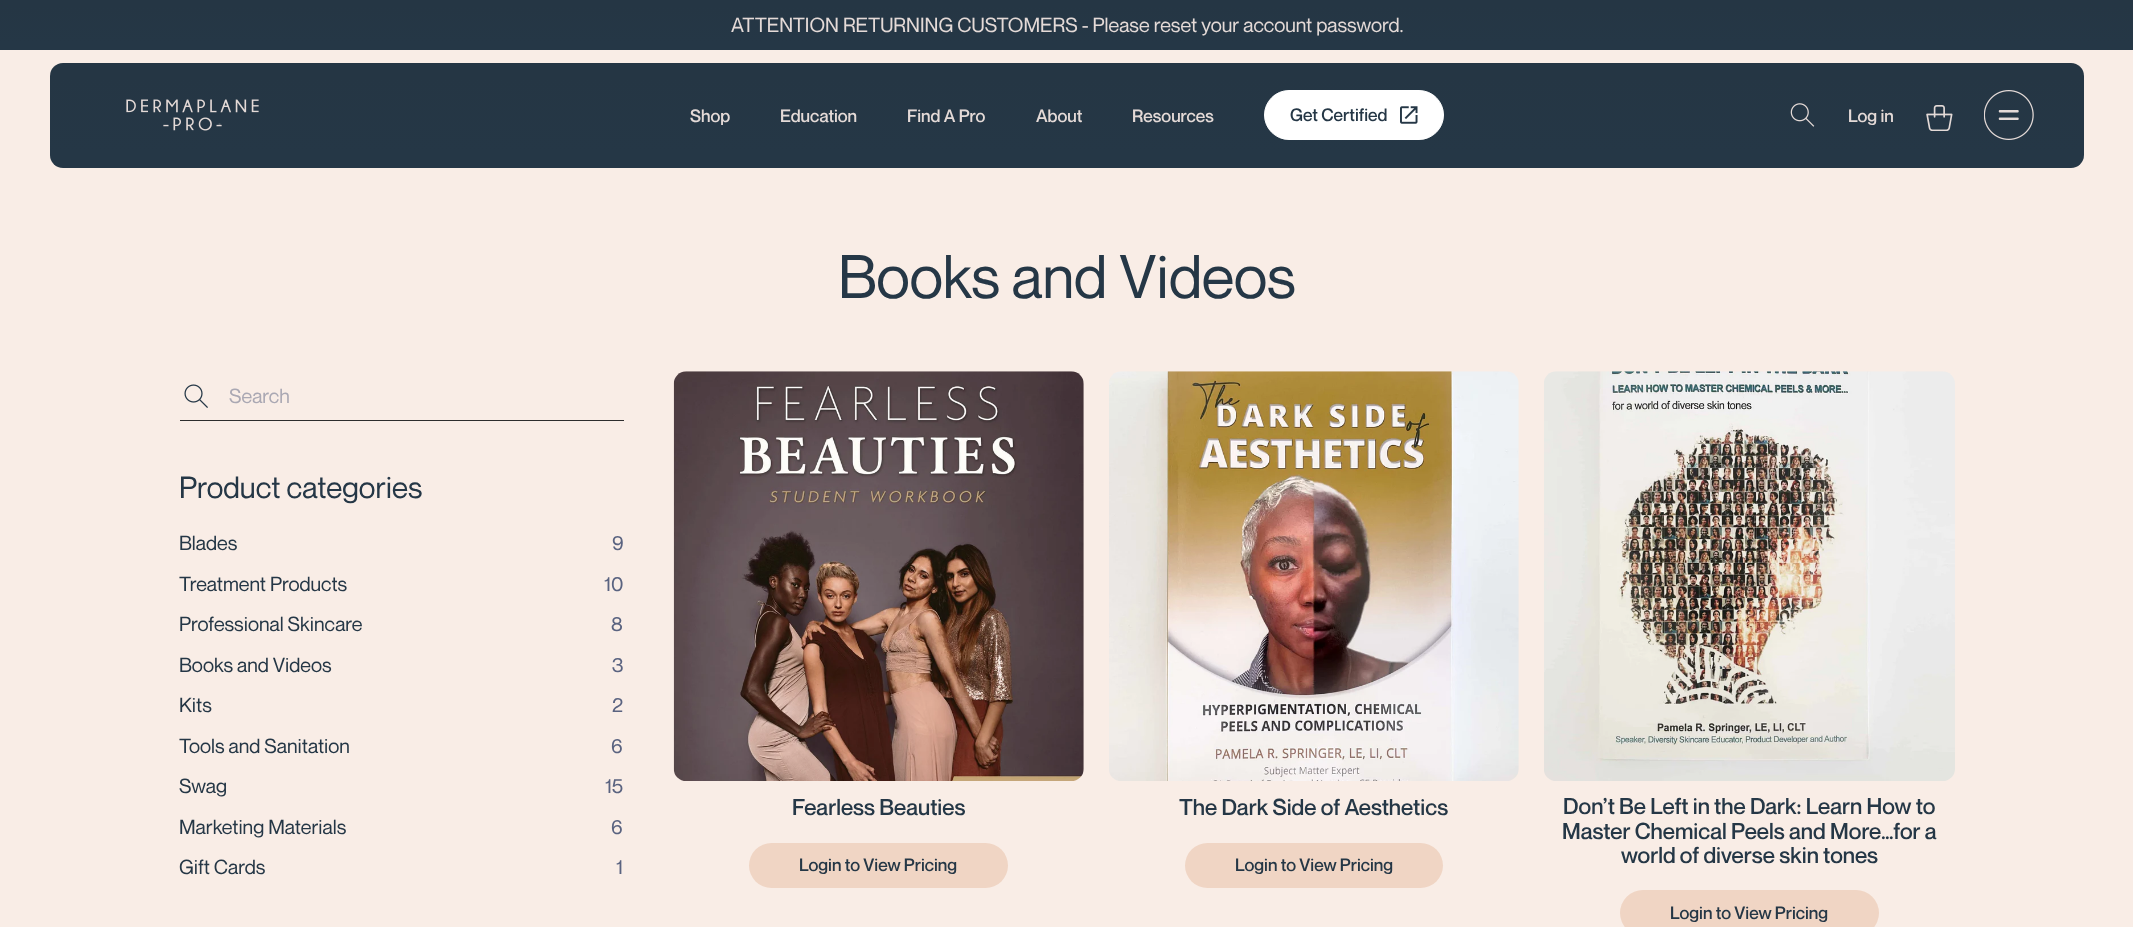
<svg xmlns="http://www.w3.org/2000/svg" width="2133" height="927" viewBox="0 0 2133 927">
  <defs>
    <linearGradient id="g1" gradientUnits="userSpaceOnUse" x1="1067" y1="50" x2="1067" y2="0"><stop offset="0.15" stop-color="rgb(37,55,70)"/><stop offset="0.87" stop-color="rgb(37,54,68)"/></linearGradient>
    <linearGradient id="g2" gradientUnits="userSpaceOnUse" x1="1067" y1="168" x2="1067" y2="63"><stop offset="0.15" stop-color="rgb(37,55,70)"/><stop offset="0.87" stop-color="rgb(37,54,68)"/></linearGradient>
  </defs>
  <rect width="100%" height="100%" fill="rgb(249,237,230)"/>
  <rect x="0" y="0" width="2133" height="50" fill="url(#g1)"/>
  <text x="731" y="32" font-family="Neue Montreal" font-size="20" fill="rgb(228,218,215)">ATTENTION RETURNING CUSTOMERS - Please reset your account password.</text>
  <rect x="50" y="63" width="2034" height="105" rx="13" fill="url(#g2)"/>
  <image x="126" y="99" width="133" height="32" href="pic1.png"/>
  <g font-family="Neue Montreal" font-size="17.5" font-weight="500" fill="rgb(228,218,215)">
    <text x="690" y="122">Shop</text>
    <text x="780" y="122">Education</text>
    <text x="907" y="122">Find A Pro</text>
    <text x="1036" y="122">About</text>
    <text x="1132" y="122">Resources</text>
  </g>
  <rect x="1264.5" y="90.5" width="179" height="49" rx="24.5" fill="rgb(255,255,255)" stroke="rgb(255,255,255)"/>
  <text x="1290" y="121" font-family="Neue Montreal" font-size="17.5" font-weight="500" fill="rgb(37,55,70)">Get Certified</text>
  <image x="1400" y="106" width="18" height="18" href="pic2.png"/>
  <image x="1790" y="103" width="25" height="24" href="pic3.png"/>
  <text x="1848" y="122" font-family="Neue Montreal" font-size="17.5" font-weight="500" fill="rgb(228,218,215)">Log in</text>
  <image x="1926" y="105" width="27" height="26" href="pic4.png"/>
  <image x="1984" y="90" width="50" height="50" href="pic5.png"/>
  <text x="838" y="298" font-family="Neue Montreal" font-size="60" fill="rgb(37,55,70)">Books and Videos</text>
  <image x="184" y="384" width="24" height="24" href="pic6.png"/>
  <rect x="180" y="420" width="444" height="1" fill="rgb(45,45,45)"/>
  <text x="229" y="403" font-family="Neue Montreal" font-size="20" fill="rgb(170,168,179)">Search</text>
  <text x="179" y="498" font-family="Neue Montreal" font-size="30" fill="rgb(37,55,70)">Product categories</text>
  <text x="179" y="550" font-family="Neue Montreal" font-size="20" fill="rgb(37,55,70)">Blades</text>
  <text x="612" y="550" font-family="Neue Montreal" font-size="20" fill="rgb(90,99,128)">9</text>
  <text x="179" y="591" font-family="Neue Montreal" font-size="20" fill="rgb(37,55,70)">Treatment Products</text>
  <text x="604" y="591" font-family="Neue Montreal" font-size="20" fill="rgb(90,99,128)">10</text>
  <text x="179" y="631" font-family="Neue Montreal" font-size="20" fill="rgb(37,55,70)">Professional Skincare</text>
  <text x="611" y="631" font-family="Neue Montreal" font-size="20" fill="rgb(90,99,128)">8</text>
  <text x="179" y="672" font-family="Neue Montreal" font-size="20" fill="rgb(37,55,70)">Books and Videos</text>
  <text x="612" y="672" font-family="Neue Montreal" font-size="20" fill="rgb(90,99,128)">3</text>
  <text x="179" y="712" font-family="Neue Montreal" font-size="20" fill="rgb(37,55,70)">Kits</text>
  <text x="612" y="712" font-family="Neue Montreal" font-size="20" fill="rgb(90,99,128)">2</text>
  <text x="179" y="753" font-family="Neue Montreal" font-size="20" fill="rgb(37,55,70)">Tools and Sanitation</text>
  <text x="611" y="753" font-family="Neue Montreal" font-size="20" fill="rgb(90,99,128)">6</text>
  <text x="179" y="793" font-family="Neue Montreal" font-size="20" fill="rgb(37,55,70)">Swag</text>
  <text x="605" y="793" font-family="Neue Montreal" font-size="20" fill="rgb(90,99,128)">15</text>
  <text x="179" y="834" font-family="Neue Montreal" font-size="20" fill="rgb(37,55,70)">Marketing Materials</text>
  <text x="611" y="834" font-family="Neue Montreal" font-size="20" fill="rgb(90,99,128)">6</text>
  <text x="179" y="874" font-family="Neue Montreal" font-size="20" fill="rgb(37,55,70)">Gift Cards</text>
  <text x="616" y="874" font-family="Neue Montreal" font-size="20" fill="rgb(90,99,128)">1</text>
  <image x="673" y="371" width="411" height="410" href="pic7.png"/>
  <text x="792" y="815" font-family="Neue Montreal" font-size="22.5" font-weight="500" fill="rgb(37,55,70)">Fearless Beauties</text>
  <rect x="749" y="843" width="259" height="45" rx="22.5" fill="rgb(240,213,196)"/>
  <text x="799" y="871" font-family="Neue Montreal" font-size="17.5" font-weight="500" fill="rgb(37,55,70)">Login to View Pricing</text>
  <image x="1109" y="371" width="410" height="410" href="pic8.png"/>
  <text x="1179" y="815" font-family="Neue Montreal" font-size="22.5" font-weight="500" fill="rgb(37,55,70)">The Dark Side of Aesthetics</text>
  <rect x="1185" y="843" width="258" height="45" rx="22.5" fill="rgb(240,213,196)"/>
  <text x="1235" y="871" font-family="Neue Montreal" font-size="17.5" font-weight="500" fill="rgb(37,55,70)">Login to View Pricing</text>
  <image x="1544" y="371" width="411" height="410" href="pic9.png"/>
  <g font-family="Neue Montreal" font-size="22.5" font-weight="500" fill="rgb(37,55,70)">
    <text x="1563" y="814">Don’t Be Left in the Dark: Learn How to</text>
    <text x="1562" y="839">Master Chemical Peels and More…for a</text>
    <text x="1621" y="863">world of diverse skin tones</text>
  </g>
  <rect x="1620" y="890" width="259" height="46" rx="23" fill="rgb(240,213,196)"/>
  <text x="1670" y="919" font-family="Neue Montreal" font-size="17.5" font-weight="500" fill="rgb(37,55,70)">Login to View Pricing</text>
</svg>
